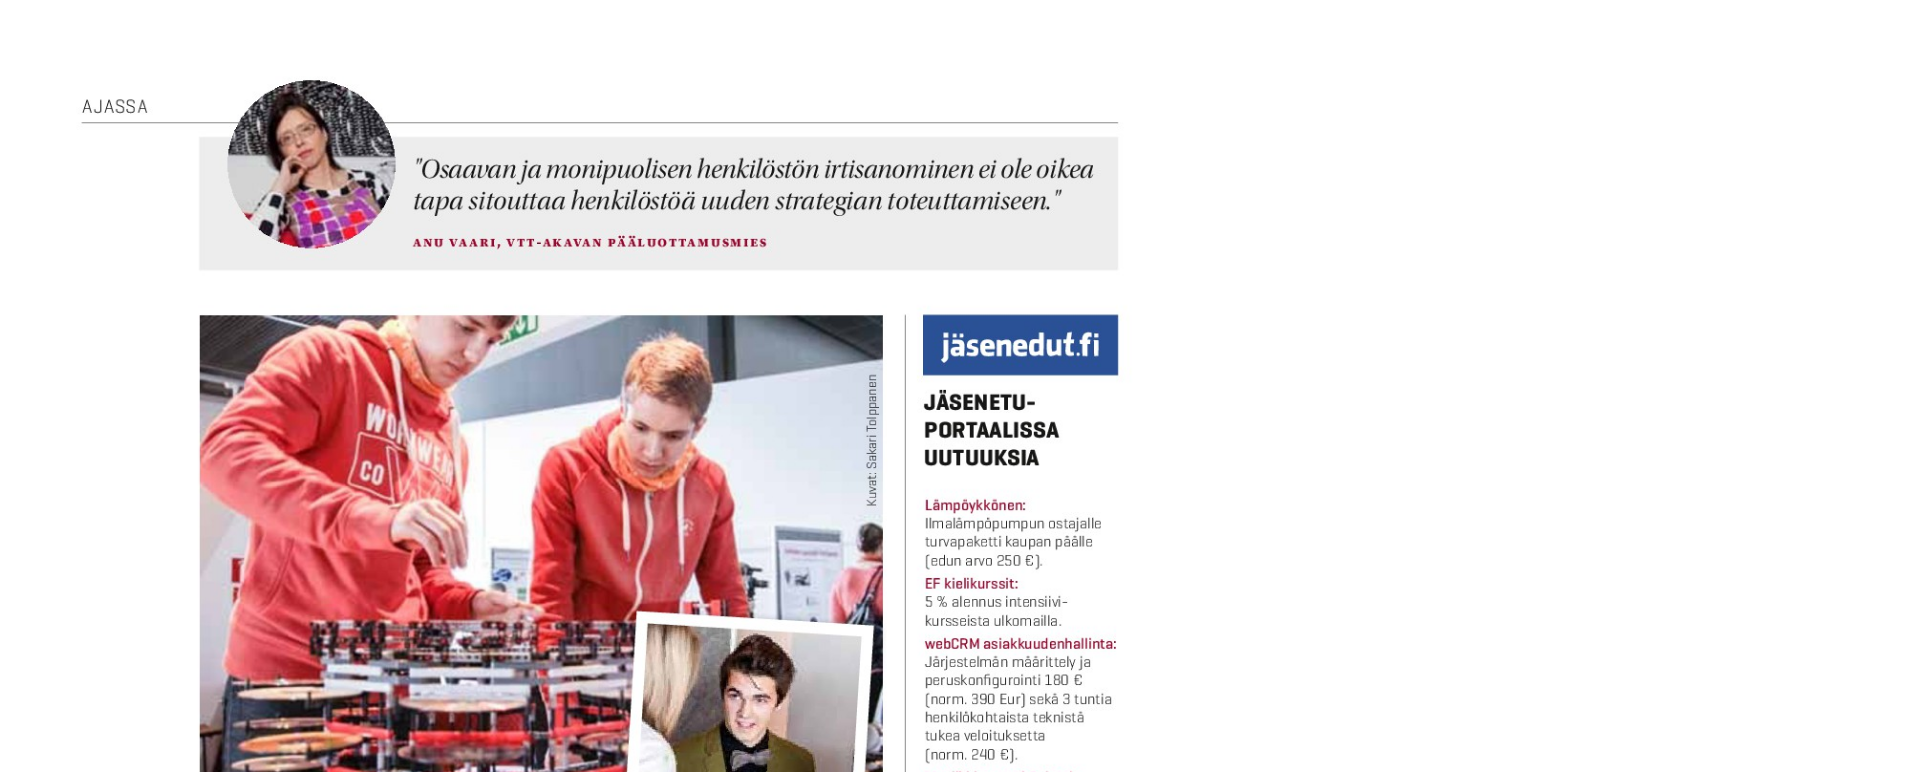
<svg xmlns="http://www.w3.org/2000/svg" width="1917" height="772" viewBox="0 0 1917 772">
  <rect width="100%" height="100%" fill="rgb(255,255,255)"/>
  <image x="0" y="0" width="1200" height="772" href="pic1.png"/>
</svg>
